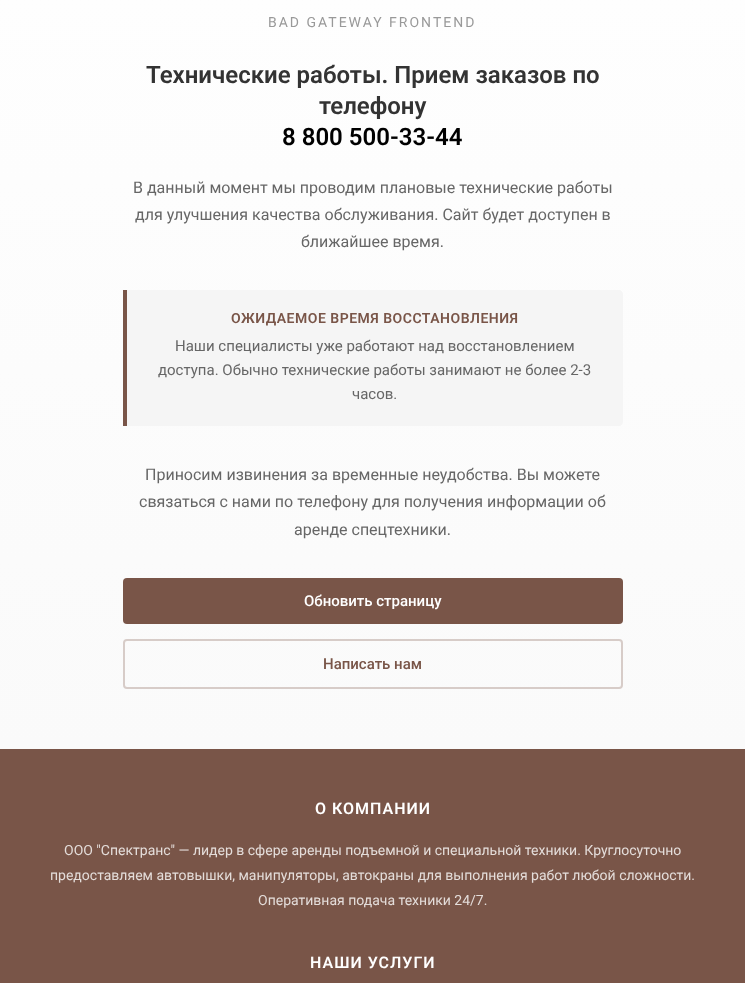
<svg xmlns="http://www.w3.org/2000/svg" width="745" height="983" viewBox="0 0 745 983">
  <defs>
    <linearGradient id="g1" gradientUnits="userSpaceOnUse" x1="372" y1="-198" x2="373" y2="749"><stop offset="0" stop-color="rgb(255,255,255)"/><stop offset="1" stop-color="rgb(250,250,250)"/></linearGradient>
  </defs>
  <rect width="100%" height="100%" fill="rgb(121,85,72)"/>
  <rect x="0" y="0" width="745" height="749" fill="url(#g1)"/>
  <text x="268" y="27" font-family="Roboto" font-size="14" letter-spacing="2" fill="rgb(153,153,153)">BAD GATEWAY FRONTEND</text>
  <g font-family="Roboto" font-size="24" font-weight="600" fill="rgb(51,51,51)">
    <text x="146" y="83">Технические работы. Прием заказов по</text>
    <text x="319" y="114">телефону</text>
  </g>
  <text x="282" y="145" font-family="Roboto" font-size="24" font-weight="600" fill="rgb(0,0,0)">8 800 500-33-44</text>
  <g font-family="Roboto" font-size="16" fill="rgb(102,102,102)">
    <text x="133" y="193">В данный момент мы проводим плановые технические работы</text>
    <text x="135" y="220">для улучшения качества обслуживания. Сайт будет доступен в</text>
    <text x="301" y="247">ближайшее время.</text>
  </g>
  <path d="M123 290H619C621 290 623 292 623 294V422C623 424 621 426 619 426H123Z" fill="rgb(245,245,245)"/>
  <rect x="123" y="290" width="4" height="136" fill="rgb(121,85,72)"/>
  <text x="231" y="323" font-family="Roboto" font-size="14" font-weight="600" letter-spacing="0.5" fill="rgb(121,85,72)">ОЖИДАЕМОЕ ВРЕМЯ ВОССТАНОВЛЕНИЯ</text>
  <g font-family="Roboto" font-size="15" fill="rgb(102,102,102)">
    <text x="175" y="351">Наши специалисты уже работают над восстановлением</text>
    <text x="158" y="375">доступа. Обычно технические работы занимают не более 2-3</text>
    <text x="352" y="399">часов.</text>
  </g>
  <g font-family="Roboto" font-size="16" fill="rgb(102,102,102)">
    <text x="145" y="480">Приносим извинения за временные неудобства. Вы можете</text>
    <text x="139" y="507">связаться с нами по телефону для получения информации об</text>
    <text x="294" y="535">аренде спецтехники.</text>
  </g>
  <rect x="123" y="578" width="500" height="46" rx="4" fill="rgb(121,85,72)"/>
  <text x="304" y="606" font-family="Roboto" font-size="15" font-weight="500" fill="rgb(255,255,255)">Обновить страницу</text>
  <rect x="124" y="640" width="498" height="48" rx="3" fill="none" stroke="rgb(215,204,200)" stroke-width="2"/>
  <text x="323" y="669" font-family="Roboto" font-size="15" font-weight="500" fill="rgb(121,85,72)">Написать нам</text>
  <text x="315" y="814" font-family="Roboto" font-size="16" font-weight="600" letter-spacing="1" fill="rgb(255,255,255)">О КОМПАНИИ</text>
  <g font-family="Roboto" font-size="14" fill="rgb(228,221,218)">
    <text x="64" y="855">ООО "Спектранс" — лидер в сфере аренды подъемной и специальной техники. Круглосуточно</text>
    <text x="50" y="880">предоставляем автовышки, манипуляторы, автокраны для выполнения работ любой сложности.</text>
    <text x="258" y="905">Оперативная подача техники 24/7.</text>
  </g>
  <text x="310" y="968" font-family="Roboto" font-size="16" font-weight="600" letter-spacing="1" fill="rgb(255,255,255)">НАШИ УСЛУГИ</text>
</svg>
